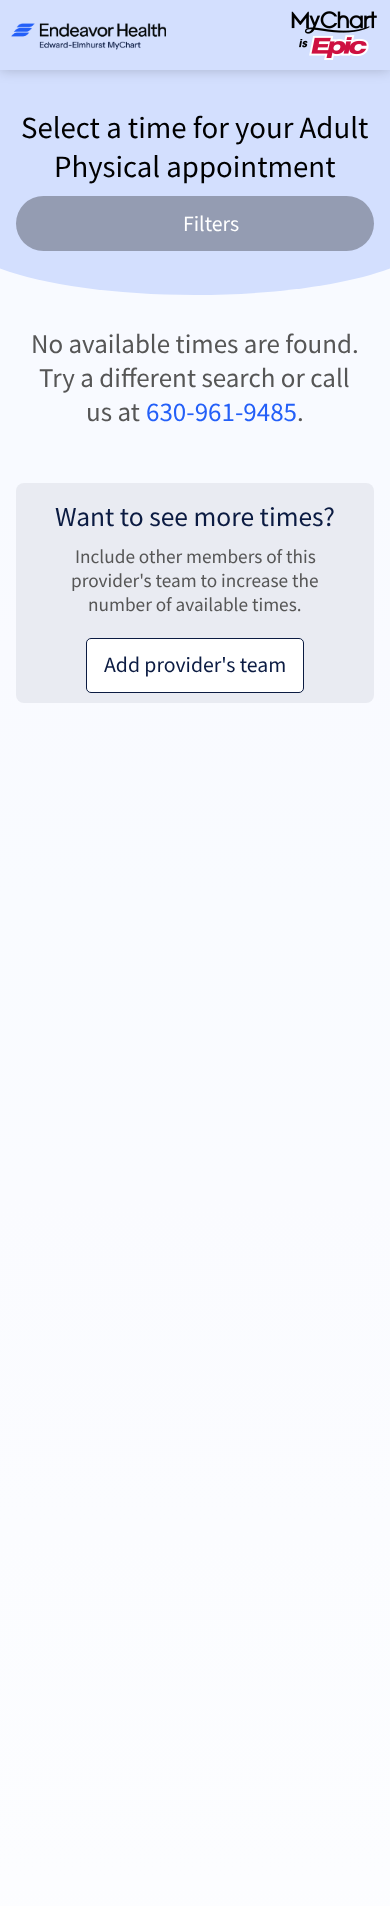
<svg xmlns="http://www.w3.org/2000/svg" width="390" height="1906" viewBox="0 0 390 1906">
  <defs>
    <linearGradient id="g1" gradientUnits="userSpaceOnUse" x1="194" y1="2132" x2="194" y2="45"><stop offset="0" stop-color="rgb(254,254,255)"/><stop offset="0.12" stop-color="rgb(252,253,255)"/><stop offset="0.29" stop-color="rgb(251,252,255)"/><stop offset="0.45" stop-color="rgb(250,251,255)"/><stop offset="0.59" stop-color="rgb(249,251,255)"/><stop offset="0.71" stop-color="rgb(249,250,255)"/><stop offset="0.79" stop-color="rgb(248,250,255)"/></linearGradient>
  </defs>
  <rect width="100%" height="100%" fill="rgb(255,255,255)"/>
  <path d="M-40 28H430C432 28 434 29 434 31V138C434 172 327 200 195 200C63 200-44 172-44 138V31C-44 29-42 28-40 28Z" fill="rgb(211,223,254)"/>
  <rect x="0" y="268" width="390" height="1638" fill="url(#g1)"/>
  <path d="M-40 86H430C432 86 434 88 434 90V232C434 267 327 295 195 295C63 295-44 267-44 232V90C-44 88-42 86-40 86Z" fill="rgb(211,223,254)"/>
  <rect x="0" y="0" width="390" height="70" fill="rgba(0,0,0,0.2)" filter="blur(6.5px)"/>
  <rect x="0" y="0" width="390" height="70" fill="rgb(211,223,254)"/>
  <image x="11" y="23" width="155" height="27" href="pic1.png"/>
  <image x="291" y="11" width="86" height="49" href="pic2.png"/>
  <g font-family="Source Sans Pro" font-size="30.8" fill="rgb(0,0,0)">
    <text x="21" y="138">Select a time for your Adult</text>
    <text x="54" y="177">Physical appointment</text>
  </g>
  <rect x="16" y="196" width="358" height="55" rx="27.5" fill="rgb(148,156,178)"/>
  <text x="183" y="231" font-family="Source Sans Pro" font-size="21.75" fill="rgb(255,255,255)">Filters</text>
  <g font-family="Source Sans Pro" font-size="27" fill="rgb(86,86,86)">
    <text x="31" y="353">No available times are found.</text>
    <text x="39" y="387">Try a different search or call</text>
    <text x="86" y="421">us at</text>
  </g>
  <text x="146" y="421" font-family="Source Sans Pro" font-size="27" fill="rgb(35,95,248)">630-961-9485</text>
  <text x="297" y="421" font-family="Source Sans Pro" font-size="27" fill="rgb(86,86,86)">.</text>
  <rect x="16" y="483" width="358" height="220" rx="8" fill="rgb(233,235,242)"/>
  <text x="55" y="526" font-family="Source Sans Pro" font-size="27.5" fill="rgb(11,27,66)">Want to see more times?</text>
  <g font-family="Source Sans Pro" font-size="19.25" fill="rgb(86,86,86)">
    <text x="75" y="563">Include other members of this</text>
    <text x="71" y="587">provider's team to increase the</text>
    <text x="88" y="611">number of available times.</text>
  </g>
  <rect x="86.5" y="638.5" width="217" height="54" rx="4.5" fill="rgb(255,255,255)" stroke="rgb(11,27,66)"/>
  <text x="104" y="672" font-family="Source Sans Pro" font-size="21.75" fill="rgb(11,27,66)">Add provider's team</text>
</svg>
